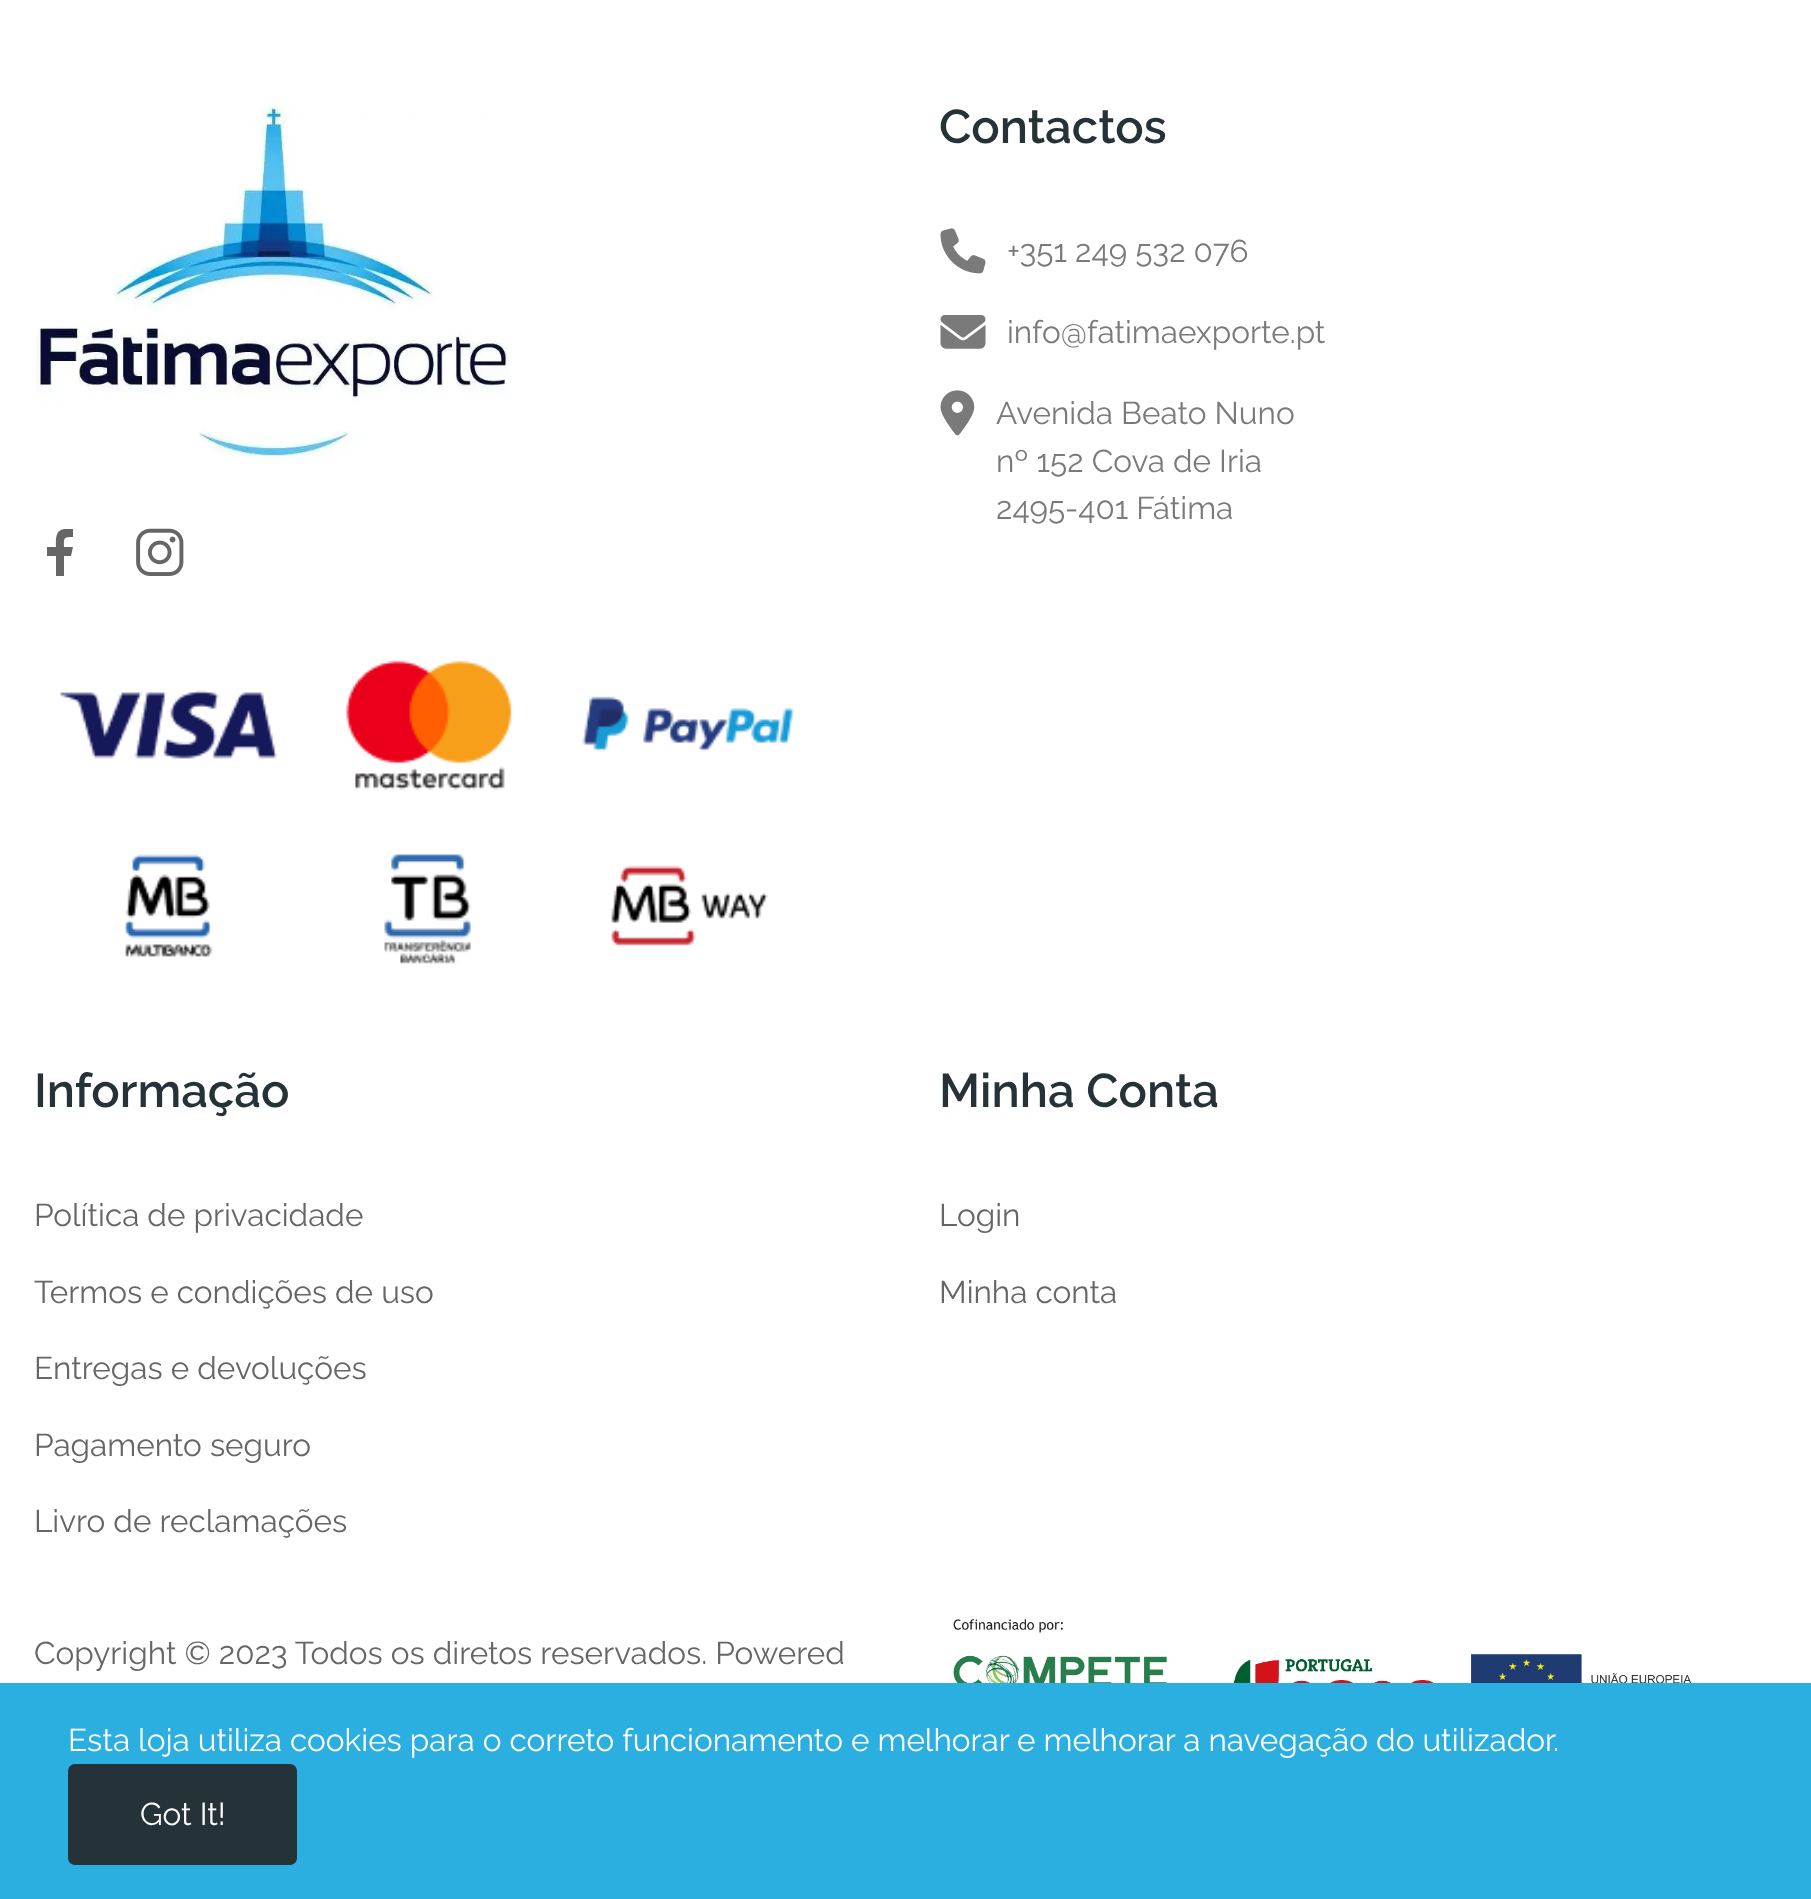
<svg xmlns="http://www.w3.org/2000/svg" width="1811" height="1899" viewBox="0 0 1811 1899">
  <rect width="100%" height="100%" fill="rgb(255,255,255)"/>
  <image x="36" y="105" width="475" height="353" href="pic1.png"/>
  <path d="M66 529C55 529 56 539 56 547H47V556H56V576H64V556H71L73 547H64C64 538 63 537 73 537V529Z" fill="rgb(102,102,102)"/>
  <image x="136" y="528" width="48" height="48" href="pic2.png"/>
  <image x="60" y="660" width="735" height="304" href="pic3.png"/>
  <text x="939" y="143" font-family="Raleway" font-size="47.25" font-weight="600" fill="rgb(37,50,55)">Contactos</text>
  <image x="940" y="228" width="46" height="46" href="pic4.png"/>
  <text x="1007" y="262" font-family="Raleway" font-size="31.5" fill="rgb(122,122,122)">+351 249 532 076</text>
  <image x="940" y="315" width="46" height="34" href="pic5.png"/>
  <text x="1007" y="343" font-family="Raleway" font-size="31.5" fill="rgb(122,122,122)">info@fatimaexporte.pt</text>
  <image x="940" y="390" width="35" height="46" href="pic6.png"/>
  <g font-family="Raleway" font-size="31.5" fill="rgb(122,122,122)">
    <text>
      <tspan x="996" y="424">Avenida Beato Nuno</tspan>
      <tspan x="996" y="472">nº 152 Cova de Iria</tspan>
      <tspan x="996" y="519">2495-401 Fátima</tspan>
    </text>
  </g>
  <text x="34" y="1107" font-family="Raleway" font-size="47.25" font-weight="600" fill="rgb(37,50,55)">Informação</text>
  <g font-family="Raleway" font-size="31.5" fill="rgb(102,102,102)">
    <text x="34" y="1226">Política de privacidade</text>
    <text x="34" y="1303">Termos e condições de uso</text>
    <text x="34" y="1379">Entregas e devoluções</text>
    <text x="34" y="1456">Pagamento seguro</text>
    <text x="34" y="1532">Livro de reclamações</text>
  </g>
  <text x="939" y="1107" font-family="Raleway" font-size="47.25" font-weight="600" fill="rgb(37,50,55)">Minha Conta</text>
  <g font-family="Raleway" font-size="31.5" fill="rgb(102,102,102)">
    <text x="939" y="1226">Login</text>
    <text x="939" y="1303">Minha conta</text>
    <text x="34" y="1664">Copyright © 2023 Todos os diretos reservados. Powered</text>
  </g>
  <image x="953" y="1619" width="819" height="64" href="pic7.png"/>
  <rect x="0" y="1683" width="1811" height="216" fill="rgb(43,175,225)"/>
  <text x="68" y="1751" font-family="Raleway" font-size="31.5" fill="rgb(255,255,255)">Esta loja utiliza cookies para o correto funcionamento e melhorar e melhorar a navegação do utilizador.</text>
  <rect x="70.5" y="1766.5" width="224" height="96" rx="4.5" fill="rgb(37,50,55)" stroke="rgb(37,50,55)" stroke-width="5"/>
  <text x="140" y="1825" font-family="Raleway" font-size="31.5" fill="rgb(255,255,255)">Got It!</text>
</svg>
